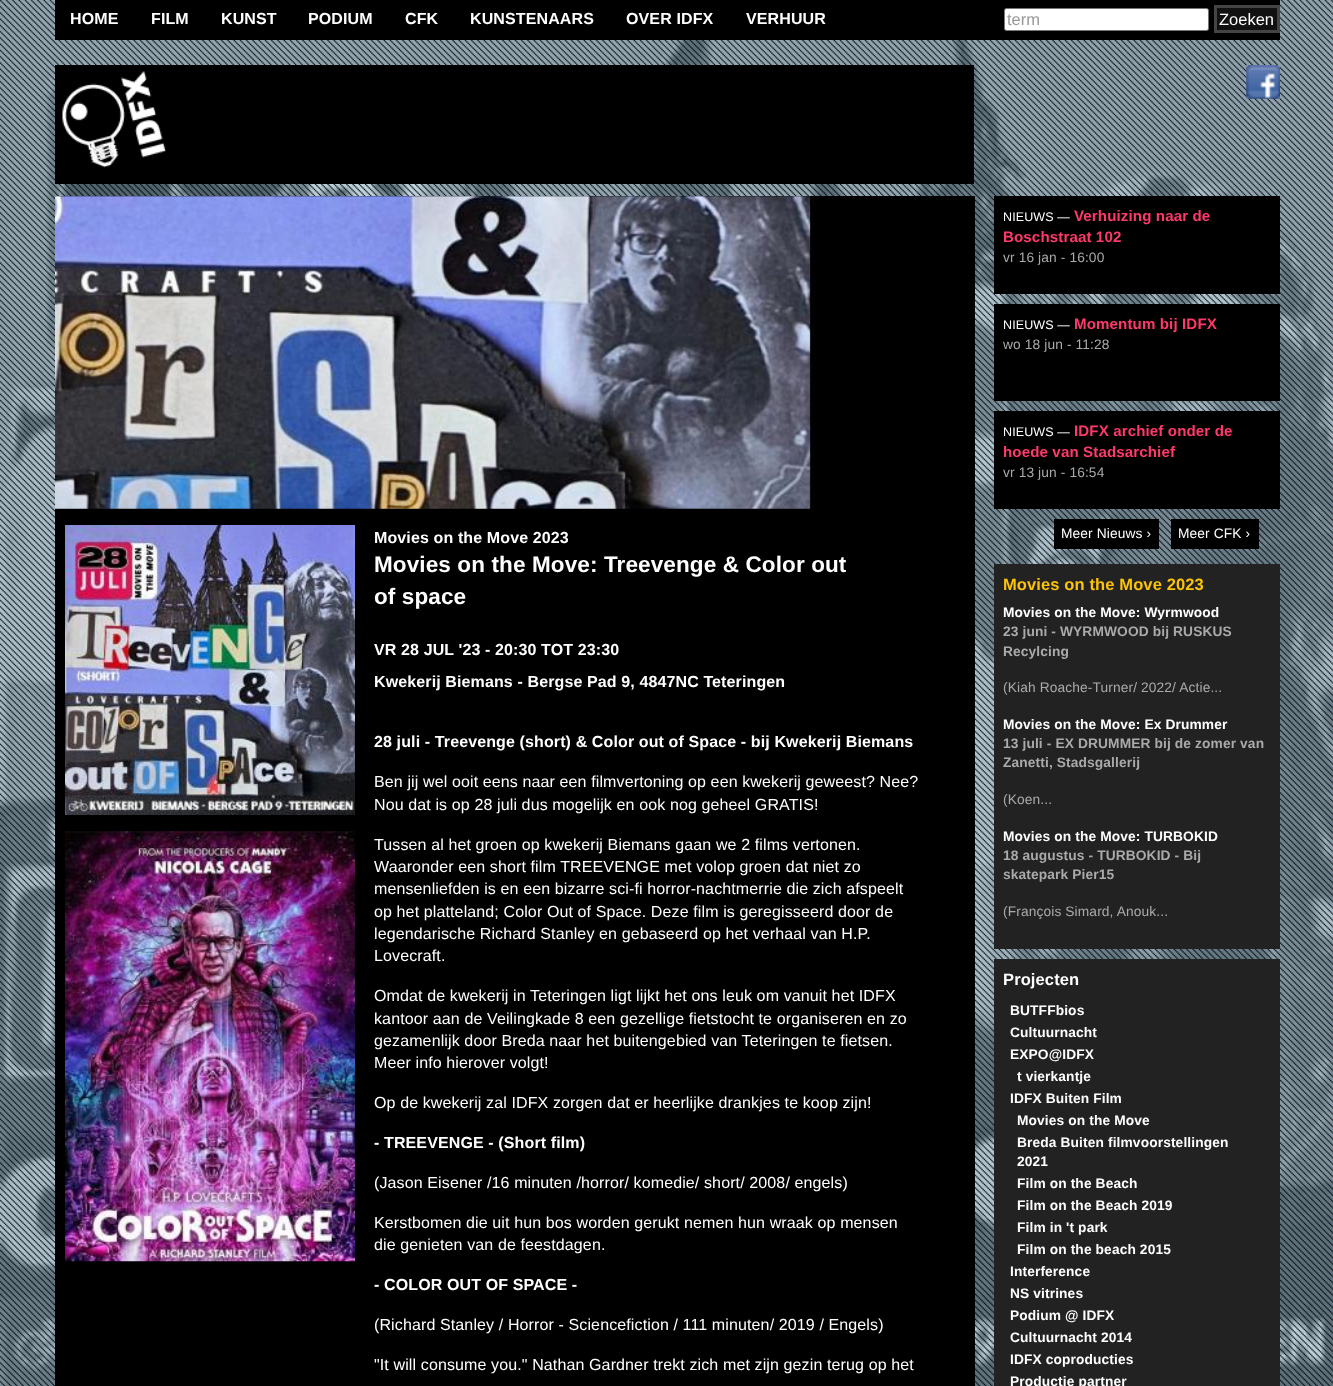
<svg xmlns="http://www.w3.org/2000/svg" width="1333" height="1386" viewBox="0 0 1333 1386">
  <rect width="100%" height="100%" fill="rgb(255,255,255)"/>
  <image x="0" y="0" width="1333" height="1386" href="pic1.png"/>
  <image x="0" y="0" width="1333" height="1386" href="pic2.png"/>
  <rect x="55" y="0" width="1225" height="40" fill="rgb(0,0,0)"/>
  <g font-family="Liberation Sans" font-size="16" font-weight="bold" letter-spacing="0.12" fill="rgb(255,255,255)">
    <text x="70" y="24">HOME</text>
    <text x="151" y="24">FILM</text>
    <text x="221" y="24">KUNST</text>
    <text x="308" y="24">PODIUM</text>
    <text x="405" y="24">CFK</text>
    <text x="470" y="24">KUNSTENAARS</text>
    <text x="626" y="24">OVER IDFX</text>
    <text x="746" y="24">VERHUUR</text>
  </g>
  <rect x="1004.5" y="8.5" width="204" height="22" rx="2" fill="rgb(255,255,255)" stroke="rgb(118,118,118)"/>
  <text x="1007" y="25" font-family="Liberation Sans" font-size="16.5" fill="rgb(153,153,153)">term</text>
  <rect x="1215.5" y="6.5" width="63" height="25" fill="rgb(17,17,17)" stroke="rgb(68,68,68)" stroke-width="3"/>
  <text x="1219" y="25" font-family="Liberation Sans" font-size="16.5" fill="rgb(255,255,255)">Zoeken</text>
  <rect x="55" y="65" width="919" height="119" fill="rgb(0,0,0)"/>
  <image x="62" y="71" width="105" height="97" href="pic3.png"/>
  <image x="1246" y="65" width="34" height="34" href="pic4.png"/>
  <rect x="55" y="196" width="920" height="1190" fill="rgb(0,0,0)"/>
  <image x="55" y="196" width="760" height="313" href="pic5.png"/>
  <image x="65" y="525" width="290" height="290" href="pic6.png"/>
  <image x="65" y="831" width="290" height="431" href="pic7.png"/>
  <text x="374" y="543" font-family="Liberation Sans" font-size="16" font-weight="bold" letter-spacing="0.12" fill="rgb(255,255,255)">Movies on the Move 2023</text>
  <g font-family="Liberation Sans" font-size="22.5" font-weight="bold" letter-spacing="0.12" fill="rgb(255,255,255)">
    <text>
      <tspan x="374" y="572">Movies on the Move: Treevenge &amp; Color out</tspan>
      <tspan x="374" y="604">of space</tspan>
    </text>
  </g>
  <g font-family="Liberation Sans" font-size="16" font-weight="bold" letter-spacing="0.12" fill="rgb(255,255,255)">
    <text x="374" y="655">VR 28 JUL '23 - 20:30 TOT 23:30</text>
    <text x="374" y="687">Kwekerij Biemans - Bergse Pad 9, 4847NC Teteringen</text>
    <text x="374" y="747">28 juli - Treevenge (short) &amp; Color out of Space - bij Kwekerij Biemans</text>
  </g>
  <g font-family="Liberation Sans" font-size="16" letter-spacing="0.12" fill="rgb(255,255,255)">
    <text>
      <tspan x="374" y="787">Ben jij wel ooit eens naar een filmvertoning op een kwekerij geweest? Nee?</tspan>
      <tspan x="374" y="810">Nou dat is op 28 juli dus mogelijk en ook nog geheel GRATIS!</tspan>
    </text>
    <text>
      <tspan x="374" y="850">Tussen al het groen op kwekerij Biemans gaan we 2 films vertonen.</tspan>
      <tspan x="374" y="872">Waaronder een short film TREEVENGE met volop groen dat niet zo</tspan>
      <tspan x="374" y="894">mensenliefden is en een bizarre sci-fi horror-nachtmerrie die zich afspeelt</tspan>
      <tspan x="374" y="917">op het platteland; Color Out of Space. Deze film is geregisseerd door de</tspan>
      <tspan x="374" y="939">legendarische Richard Stanley en gebaseerd op het verhaal van H.P.</tspan>
      <tspan x="374" y="961">Lovecraft.</tspan>
    </text>
    <text>
      <tspan x="374" y="1001">Omdat de kwekerij in Teteringen ligt lijkt het ons leuk om vanuit het IDFX</tspan>
      <tspan x="374" y="1024">kantoor aan de Veilingkade 8 een gezellige fietstocht te organiseren en zo</tspan>
      <tspan x="374" y="1046">gezamenlijk door Breda naar het buitengebied van Teteringen te fietsen.</tspan>
      <tspan x="374" y="1068">Meer info hierover volgt!</tspan>
    </text>
    <text x="374" y="1108">Op de kwekerij zal IDFX zorgen dat er heerlijke drankjes te koop zijn!</text>
  </g>
  <text x="374" y="1148" font-family="Liberation Sans" font-size="16" font-weight="bold" letter-spacing="0.12" fill="rgb(255,255,255)">- TREEVENGE - (Short film)</text>
  <g font-family="Liberation Sans" font-size="16" letter-spacing="0.12" fill="rgb(255,255,255)">
    <text x="374" y="1188">(Jason Eisener /16 minuten /horror/ komedie/ short/ 2008/ engels)</text>
    <text>
      <tspan x="374" y="1228">Kerstbomen die uit hun bos worden gerukt nemen hun wraak op mensen</tspan>
      <tspan x="374" y="1250">die genieten van de feestdagen.</tspan>
    </text>
  </g>
  <text x="374" y="1290" font-family="Liberation Sans" font-size="16" font-weight="bold" letter-spacing="0.12" fill="rgb(255,255,255)">- COLOR OUT OF SPACE -</text>
  <g font-family="Liberation Sans" font-size="16" letter-spacing="0.12" fill="rgb(255,255,255)">
    <text x="374" y="1330">(Richard Stanley / Horror - Sciencefiction / 111 minuten/ 2019 / Engels)</text>
    <text x="374" y="1370">"It will consume you." Nathan Gardner trekt zich met zijn gezin terug op het</text>
  </g>
  <rect x="994" y="196" width="286" height="98" fill="rgb(0,0,0)"/>
  <text x="1003" y="221" font-family="Liberation Sans" font-size="12.5" letter-spacing="0.12" fill="rgb(255,255,255)">NIEUWS —</text>
  <g font-family="Liberation Sans" font-size="15.1" font-weight="bold" letter-spacing="0.12" fill="rgb(255,58,106)">
    <text x="1074" y="221">Verhuizing naar de</text>
    <text x="1003" y="242">Boschstraat 102</text>
  </g>
  <text x="1003" y="262" font-family="Liberation Sans" font-size="13.75" letter-spacing="0.12" fill="rgb(170,170,170)">vr 16 jan - 16:00</text>
  <rect x="994" y="304" width="286" height="97" fill="rgb(0,0,0)"/>
  <text x="1003" y="329" font-family="Liberation Sans" font-size="12.5" letter-spacing="0.12" fill="rgb(255,255,255)">NIEUWS —</text>
  <text x="1074" y="329" font-family="Liberation Sans" font-size="15.1" font-weight="bold" letter-spacing="0.12" fill="rgb(255,58,106)">Momentum bij IDFX</text>
  <text x="1003" y="349" font-family="Liberation Sans" font-size="13.75" letter-spacing="0.12" fill="rgb(170,170,170)">wo 18 jun - 11:28</text>
  <rect x="994" y="411" width="286" height="98" fill="rgb(0,0,0)"/>
  <text x="1003" y="436" font-family="Liberation Sans" font-size="12.5" letter-spacing="0.12" fill="rgb(255,255,255)">NIEUWS —</text>
  <g font-family="Liberation Sans" font-size="15.1" font-weight="bold" letter-spacing="0.12" fill="rgb(255,58,106)">
    <text x="1074" y="436">IDFX archief onder de</text>
    <text x="1003" y="457">hoede van Stadsarchief</text>
  </g>
  <text x="1003" y="477" font-family="Liberation Sans" font-size="13.75" letter-spacing="0.12" fill="rgb(170,170,170)">vr 13 jun - 16:54</text>
  <rect x="1054" y="519" width="105" height="30" fill="rgb(0,0,0)"/>
  <text x="1061" y="538" font-family="Liberation Sans" font-size="13.75" letter-spacing="0.12" fill="rgb(255,255,255)">Meer Nieuws ›</text>
  <rect x="1171" y="519" width="88" height="30" fill="rgb(0,0,0)"/>
  <text x="1178" y="538" font-family="Liberation Sans" font-size="13.75" letter-spacing="0.12" fill="rgb(255,255,255)">Meer CFK ›</text>
  <rect x="994" y="564" width="286" height="385" fill="rgb(34,34,34)"/>
  <text x="1003" y="590" font-family="Liberation Sans" font-size="16.5" font-weight="bold" letter-spacing="0.12" fill="rgb(252,195,8)">Movies on the Move 2023</text>
  <text x="1003" y="617" font-family="Liberation Sans" font-size="13.75" font-weight="bold" letter-spacing="0.12" fill="rgb(255,255,255)">Movies on the Move: Wyrmwood</text>
  <g font-family="Liberation Sans" font-size="13.75" font-weight="bold" letter-spacing="0.12" fill="rgb(170,170,170)">
    <text>
      <tspan x="1003" y="636">23 juni - WYRMWOOD bij RUSKUS</tspan>
      <tspan x="1003" y="656">Recylcing</tspan>
    </text>
  </g>
  <text x="1003" y="692" font-family="Liberation Sans" font-size="13.75" letter-spacing="0.12" fill="rgb(170,170,170)">(Kiah Roache-Turner/ 2022/ Actie...</text>
  <text x="1003" y="729" font-family="Liberation Sans" font-size="13.75" font-weight="bold" letter-spacing="0.12" fill="rgb(255,255,255)">Movies on the Move: Ex Drummer</text>
  <g font-family="Liberation Sans" font-size="13.75" font-weight="bold" letter-spacing="0.12" fill="rgb(170,170,170)">
    <text>
      <tspan x="1003" y="748">13 juli - EX DRUMMER bij de zomer van</tspan>
      <tspan x="1003" y="767">Zanetti, Stadsgallerij</tspan>
    </text>
  </g>
  <text x="1003" y="804" font-family="Liberation Sans" font-size="13.75" letter-spacing="0.12" fill="rgb(170,170,170)">(Koen...</text>
  <text x="1003" y="841" font-family="Liberation Sans" font-size="13.75" font-weight="bold" letter-spacing="0.12" fill="rgb(255,255,255)">Movies on the Move: TURBOKID</text>
  <g font-family="Liberation Sans" font-size="13.75" font-weight="bold" letter-spacing="0.12" fill="rgb(170,170,170)">
    <text>
      <tspan x="1003" y="860">18 augustus - TURBOKID - Bij</tspan>
      <tspan x="1003" y="879">skatepark Pier15</tspan>
    </text>
  </g>
  <text x="1003" y="916" font-family="Liberation Sans" font-size="13.75" letter-spacing="0.12" fill="rgb(170,170,170)">(François Simard, Anouk...</text>
  <rect x="994" y="959" width="286" height="427" fill="rgb(34,34,34)"/>
  <text x="1003" y="985" font-family="Liberation Sans" font-size="16.5" font-weight="bold" letter-spacing="0.12" fill="rgb(255,255,255)">Projecten</text>
  <g font-family="Liberation Sans" font-size="13.75" font-weight="bold" letter-spacing="0.12" fill="rgb(255,255,255)">
    <text>
      <tspan x="1010" y="1015">BUTFFbios</tspan>
      <tspan x="1010" y="1037">Cultuurnacht</tspan>
      <tspan x="1010" y="1059">EXPO@IDFX</tspan>
    </text>
    <text x="1017" y="1081">t vierkantje</text>
    <text x="1010" y="1103">IDFX Buiten Film</text>
    <text>
      <tspan x="1017" y="1125">Movies on the Move</tspan>
      <tspan x="1017" y="1147">Breda Buiten filmvoorstellingen</tspan>
      <tspan x="1017" y="1166">2021</tspan>
      <tspan x="1017" y="1188">Film on the Beach</tspan>
      <tspan x="1017" y="1210">Film on the Beach 2019</tspan>
      <tspan x="1017" y="1232">Film in 't park</tspan>
      <tspan x="1017" y="1254">Film on the beach 2015</tspan>
    </text>
    <text>
      <tspan x="1010" y="1276">Interference</tspan>
      <tspan x="1010" y="1298">NS vitrines</tspan>
      <tspan x="1010" y="1320">Podium @ IDFX</tspan>
      <tspan x="1010" y="1342">Cultuurnacht 2014</tspan>
      <tspan x="1010" y="1364">IDFX coproducties</tspan>
      <tspan x="1010" y="1386">Productie partner</tspan>
    </text>
  </g>
</svg>
